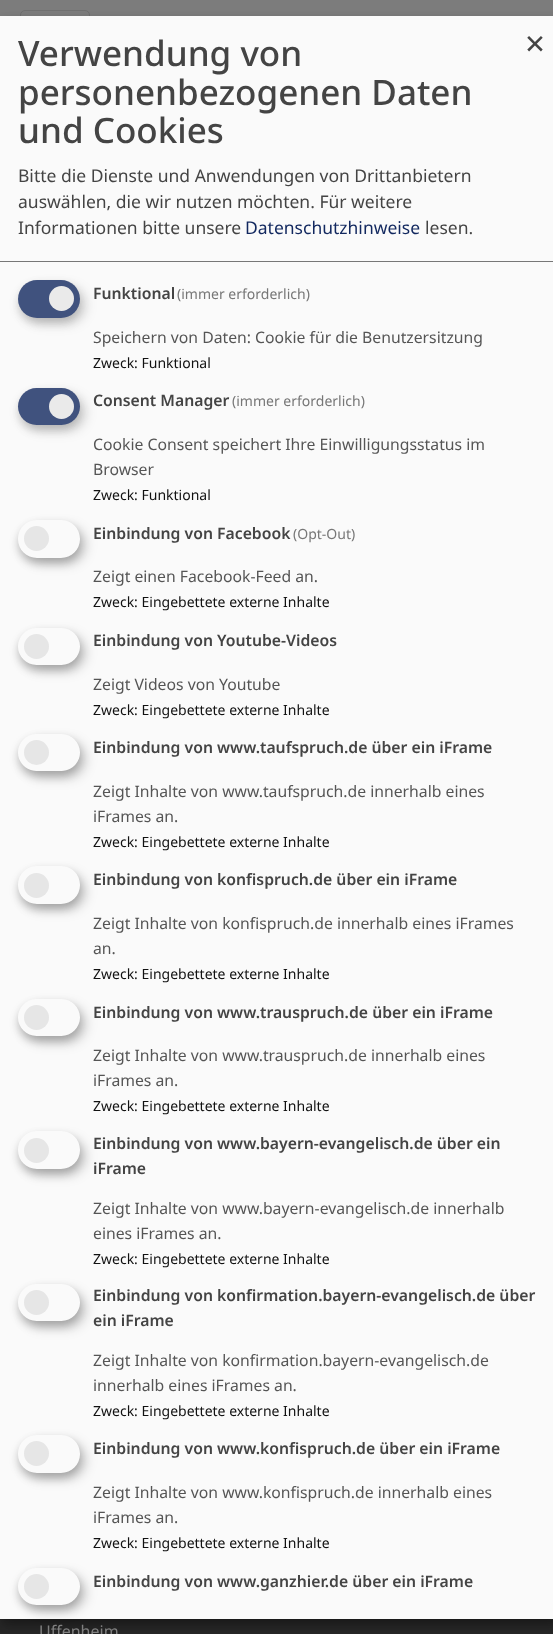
<svg xmlns="http://www.w3.org/2000/svg" width="553" height="1634" viewBox="0 0 553 1634">
  <defs>
    <clipPath id="clip1"><path d="M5 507H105V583H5ZM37 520H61C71.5 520 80 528.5 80 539C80 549.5 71.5 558 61 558H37C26.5 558 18 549.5 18 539C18 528.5 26.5 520 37 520Z" clip-rule="evenodd"/></clipPath>
    <clipPath id="clip2"><path d="M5 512H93V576H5ZM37 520H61C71.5 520 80 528.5 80 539C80 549.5 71.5 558 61 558H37C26.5 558 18 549.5 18 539C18 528.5 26.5 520 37 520Z" clip-rule="evenodd"/></clipPath>
    <clipPath id="clip3"><path d="M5 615H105V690H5ZM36.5 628H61.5C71.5 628 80 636.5 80 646.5C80 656.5 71.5 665 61.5 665H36.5C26.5 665 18 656.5 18 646.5C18 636.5 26.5 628 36.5 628Z" clip-rule="evenodd"/></clipPath>
    <clipPath id="clip4"><path d="M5 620H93V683H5ZM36.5 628H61.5C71.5 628 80 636.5 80 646.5C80 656.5 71.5 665 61.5 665H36.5C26.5 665 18 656.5 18 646.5C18 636.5 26.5 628 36.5 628Z" clip-rule="evenodd"/></clipPath>
    <clipPath id="clip5"><path d="M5 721H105V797H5ZM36.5 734H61.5C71.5 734 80 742.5 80 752.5C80 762.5 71.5 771 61.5 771H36.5C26.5 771 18 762.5 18 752.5C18 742.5 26.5 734 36.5 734Z" clip-rule="evenodd"/></clipPath>
    <clipPath id="clip6"><path d="M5 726H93V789H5ZM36.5 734H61.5C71.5 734 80 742.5 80 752.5C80 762.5 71.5 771 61.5 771H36.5C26.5 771 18 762.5 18 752.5C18 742.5 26.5 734 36.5 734Z" clip-rule="evenodd"/></clipPath>
    <clipPath id="clip7"><path d="M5 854H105V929H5ZM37 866H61C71.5 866 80 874.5 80 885C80 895.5 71.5 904 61 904H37C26.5 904 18 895.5 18 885C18 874.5 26.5 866 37 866Z" clip-rule="evenodd"/></clipPath>
    <clipPath id="clip8"><path d="M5 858H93V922H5ZM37 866H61C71.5 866 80 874.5 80 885C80 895.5 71.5 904 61 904H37C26.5 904 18 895.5 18 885C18 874.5 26.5 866 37 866Z" clip-rule="evenodd"/></clipPath>
    <clipPath id="clip9"><path d="M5 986H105V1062H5ZM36.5 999H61.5C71.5 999 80 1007.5 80 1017.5C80 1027.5 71.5 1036 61.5 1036H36.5C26.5 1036 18 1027.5 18 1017.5C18 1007.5 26.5 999 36.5 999Z" clip-rule="evenodd"/></clipPath>
    <clipPath id="clip10"><path d="M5 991H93V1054H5ZM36.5 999H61.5C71.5 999 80 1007.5 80 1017.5C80 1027.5 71.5 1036 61.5 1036H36.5C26.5 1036 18 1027.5 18 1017.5C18 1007.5 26.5 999 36.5 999Z" clip-rule="evenodd"/></clipPath>
    <clipPath id="clip11"><path d="M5 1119H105V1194H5ZM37 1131H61C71.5 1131 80 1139.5 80 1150C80 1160.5 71.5 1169 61 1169H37C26.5 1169 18 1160.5 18 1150C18 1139.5 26.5 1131 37 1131Z" clip-rule="evenodd"/></clipPath>
    <clipPath id="clip12"><path d="M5 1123H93V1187H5ZM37 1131H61C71.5 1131 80 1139.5 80 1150C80 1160.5 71.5 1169 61 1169H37C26.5 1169 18 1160.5 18 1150C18 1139.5 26.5 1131 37 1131Z" clip-rule="evenodd"/></clipPath>
    <clipPath id="clip13"><path d="M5 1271H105V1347H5ZM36.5 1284H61.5C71.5 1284 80 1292.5 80 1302.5C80 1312.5 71.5 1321 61.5 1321H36.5C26.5 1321 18 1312.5 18 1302.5C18 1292.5 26.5 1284 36.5 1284Z" clip-rule="evenodd"/></clipPath>
    <clipPath id="clip14"><path d="M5 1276H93V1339H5ZM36.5 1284H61.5C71.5 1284 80 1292.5 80 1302.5C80 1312.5 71.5 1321 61.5 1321H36.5C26.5 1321 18 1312.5 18 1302.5C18 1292.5 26.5 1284 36.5 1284Z" clip-rule="evenodd"/></clipPath>
    <clipPath id="clip15"><path d="M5 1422H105V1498H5ZM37 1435H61C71.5 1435 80 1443.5 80 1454C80 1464.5 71.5 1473 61 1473H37C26.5 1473 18 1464.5 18 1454C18 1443.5 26.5 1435 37 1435Z" clip-rule="evenodd"/></clipPath>
    <clipPath id="clip16"><path d="M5 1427H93V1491H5ZM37 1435H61C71.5 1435 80 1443.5 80 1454C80 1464.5 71.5 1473 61 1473H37C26.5 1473 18 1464.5 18 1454C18 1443.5 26.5 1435 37 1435Z" clip-rule="evenodd"/></clipPath>
    <clipPath id="clip17"><path d="M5 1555H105V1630H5ZM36.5 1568H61.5C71.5 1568 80 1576.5 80 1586.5C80 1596.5 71.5 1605 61.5 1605H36.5C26.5 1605 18 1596.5 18 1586.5C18 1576.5 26.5 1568 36.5 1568Z" clip-rule="evenodd"/></clipPath>
    <clipPath id="clip18"><path d="M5 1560H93V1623H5ZM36.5 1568H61.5C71.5 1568 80 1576.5 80 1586.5C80 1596.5 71.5 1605 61.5 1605H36.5C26.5 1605 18 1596.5 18 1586.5C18 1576.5 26.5 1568 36.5 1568Z" clip-rule="evenodd"/></clipPath>
  </defs>
  <rect width="100%" height="100%" fill="rgb(39,39,39)"/>
  <rect x="0" y="0" width="553" height="16" fill="rgb(124,124,124)"/>
  <rect x="20.5" y="10.5" width="69" height="49" rx="4.5" fill="none" stroke="rgb(111,111,111)"/>
  <rect x="6" y="23" width="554" height="1602" fill="rgba(0,0,0,0.19)" filter="blur(6px)"/>
  <rect x="0" y="21" width="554" height="1603" fill="rgba(0,0,0,0.2)" filter="blur(4px)"/>
  <rect x="0" y="16" width="553" height="1603" fill="rgb(250,250,250)"/>
  <rect x="0" y="261" width="553" height="1" fill="rgb(119,119,119)"/>
  <g font-family="Noto Sans" font-size="35" font-weight="500" fill="rgb(68,68,68)">
    <text>
      <tspan x="18" y="66">Verwendung von</tspan>
      <tspan x="18" y="105">personenbezogenen Daten</tspan>
      <tspan x="18" y="143">und Cookies</tspan>
    </text>
  </g>
  <g font-family="Noto Sans" font-size="17.5" fill="rgb(68,68,68)">
    <text>
      <tspan x="18" y="182">Bitte die Dienste und Anwendungen von Drittanbietern</tspan>
      <tspan x="18" y="208">auswählen, die wir nutzen möchten. Für weitere</tspan>
      <tspan x="18" y="234">Informationen bitte unsere</tspan>
    </text>
  </g>
  <text x="245" y="234" font-family="Noto Sans" font-size="17.5" fill="rgb(18,40,95)">Datenschutzhinweise</text>
  <text x="425" y="234" font-family="Noto Sans" font-size="17.5" fill="rgb(68,68,68)">lesen.</text>
  <text x="525" y="56" font-family="Noto Sans" font-size="35" fill="rgb(68,68,68)">×</text>
  <rect x="24" y="286" width="62" height="38" rx="19" fill="rgba(0,0,0,0.15)" filter="blur(6px)"/>
  <rect x="18" y="285" width="62" height="38" rx="19" fill="rgba(50,50,50,0.2)" filter="blur(4px)"/>
  <rect x="18" y="280" width="62" height="38" rx="19" fill="rgb(64,82,126)"/>
  <circle cx="61.5" cy="298.5" r="12.5" fill="rgb(234,234,234)"/>
  <text x="93" y="299" font-family="Noto Sans" font-size="15.75" font-weight="600" fill="rgb(68,68,68)">Funktional</text>
  <text x="177" y="299" font-family="Noto Sans" font-size="14" fill="rgb(119,119,119)">(immer erforderlich)</text>
  <text x="93" y="343" font-family="Noto Sans" font-size="15.75" fill="rgb(85,85,85)">Speichern von Daten: Cookie für die Benutzersitzung</text>
  <text x="93" y="368" font-family="Noto Sans" font-size="14" fill="rgb(17,17,17)">Zweck: Funktional</text>
  <rect x="24" y="394" width="62" height="37" rx="18.5" fill="rgba(0,0,0,0.15)" filter="blur(6px)"/>
  <rect x="18" y="393" width="62" height="37" rx="18.5" fill="rgba(50,50,50,0.2)" filter="blur(4px)"/>
  <rect x="18" y="388" width="62" height="37" rx="18.5" fill="rgb(64,82,126)"/>
  <circle cx="61.5" cy="406.5" r="12.5" fill="rgb(234,234,234)"/>
  <text x="93" y="406" font-family="Noto Sans" font-size="15.75" font-weight="600" fill="rgb(68,68,68)">Consent Manager</text>
  <text x="232" y="406" font-family="Noto Sans" font-size="14" fill="rgb(119,119,119)">(immer erforderlich)</text>
  <g font-family="Noto Sans" font-size="15.75" fill="rgb(85,85,85)">
    <text>
      <tspan x="93" y="450">Cookie Consent speichert Ihre Einwilligungsstatus im</tspan>
      <tspan x="93" y="475">Browser</tspan>
    </text>
  </g>
  <text x="93" y="500" font-family="Noto Sans" font-size="14" fill="rgb(17,17,17)">Zweck: Funktional</text>
  <g clip-path="url(#clip1)">
    <rect x="24" y="526" width="62" height="38" rx="19" fill="rgba(0,0,0,0.19)" filter="blur(6px)"/>
  </g>
  <g clip-path="url(#clip2)">
    <rect x="18" y="525" width="62" height="38" rx="19" fill="rgba(0,0,0,0.2)" filter="blur(4px)"/>
  </g>
  <circle cx="36.5" cy="538.5" r="12.5" fill="rgb(230,230,230)"/>
  <text x="93" y="539" font-family="Noto Sans" font-size="15.75" font-weight="600" fill="rgb(68,68,68)">Einbindung von Facebook</text>
  <text x="293" y="539" font-family="Noto Sans" font-size="14" fill="rgb(119,119,119)">(Opt-Out)</text>
  <text x="93" y="582" font-family="Noto Sans" font-size="15.75" fill="rgb(85,85,85)">Zeigt einen Facebook-Feed an.</text>
  <text x="93" y="607" font-family="Noto Sans" font-size="14" fill="rgb(17,17,17)">Zweck: Eingebettete externe Inhalte</text>
  <g clip-path="url(#clip3)">
    <rect x="24" y="634" width="62" height="37" rx="18.5" fill="rgba(0,0,0,0.19)" filter="blur(6px)"/>
  </g>
  <g clip-path="url(#clip4)">
    <rect x="18" y="633" width="62" height="37" rx="18.5" fill="rgba(0,0,0,0.2)" filter="blur(4px)"/>
  </g>
  <circle cx="36.5" cy="646.5" r="12.5" fill="rgb(230,230,230)"/>
  <text x="93" y="646" font-family="Noto Sans" font-size="15.75" font-weight="600" fill="rgb(68,68,68)">Einbindung von Youtube-Videos</text>
  <text x="93" y="690" font-family="Noto Sans" font-size="15.75" fill="rgb(85,85,85)">Zeigt Videos von Youtube</text>
  <text x="93" y="715" font-family="Noto Sans" font-size="14" fill="rgb(17,17,17)">Zweck: Eingebettete externe Inhalte</text>
  <g clip-path="url(#clip5)">
    <rect x="24" y="740" width="62" height="38" rx="19" fill="rgba(0,0,0,0.19)" filter="blur(6px)"/>
  </g>
  <g clip-path="url(#clip6)">
    <rect x="18" y="739" width="62" height="37" rx="18.5" fill="rgba(0,0,0,0.2)" filter="blur(4px)"/>
  </g>
  <circle cx="36.5" cy="752.5" r="12.5" fill="rgb(230,230,230)"/>
  <text x="93" y="753" font-family="Noto Sans" font-size="15.75" font-weight="600" fill="rgb(68,68,68)">Einbindung von www.taufspruch.de über ein iFrame</text>
  <g font-family="Noto Sans" font-size="15.75" fill="rgb(85,85,85)">
    <text>
      <tspan x="93" y="797">Zeigt Inhalte von www.taufspruch.de innerhalb eines</tspan>
      <tspan x="93" y="822">iFrames an.</tspan>
    </text>
  </g>
  <text x="93" y="847" font-family="Noto Sans" font-size="14" fill="rgb(17,17,17)">Zweck: Eingebettete externe Inhalte</text>
  <g clip-path="url(#clip7)">
    <rect x="24" y="873" width="62" height="37" rx="18.5" fill="rgba(0,0,0,0.19)" filter="blur(6px)"/>
  </g>
  <g clip-path="url(#clip8)">
    <rect x="18" y="871" width="62" height="38" rx="19" fill="rgba(0,0,0,0.2)" filter="blur(4px)"/>
  </g>
  <circle cx="36.5" cy="885.5" r="12.5" fill="rgb(230,230,230)"/>
  <text x="93" y="885" font-family="Noto Sans" font-size="15.75" font-weight="600" fill="rgb(68,68,68)">Einbindung von konfispruch.de über ein iFrame</text>
  <g font-family="Noto Sans" font-size="15.75" fill="rgb(85,85,85)">
    <text>
      <tspan x="93" y="929">Zeigt Inhalte von konfispruch.de innerhalb eines iFrames</tspan>
      <tspan x="93" y="954">an.</tspan>
    </text>
  </g>
  <text x="93" y="979" font-family="Noto Sans" font-size="14" fill="rgb(17,17,17)">Zweck: Eingebettete externe Inhalte</text>
  <g clip-path="url(#clip9)">
    <rect x="24" y="1005" width="62" height="38" rx="19" fill="rgba(0,0,0,0.19)" filter="blur(6px)"/>
  </g>
  <g clip-path="url(#clip10)">
    <rect x="18" y="1004" width="62" height="37" rx="18.5" fill="rgba(0,0,0,0.2)" filter="blur(4px)"/>
  </g>
  <circle cx="36.5" cy="1017.5" r="12.5" fill="rgb(230,230,230)"/>
  <text x="93" y="1018" font-family="Noto Sans" font-size="15.75" font-weight="600" fill="rgb(68,68,68)">Einbindung von www.trauspruch.de über ein iFrame</text>
  <g font-family="Noto Sans" font-size="15.75" fill="rgb(85,85,85)">
    <text>
      <tspan x="93" y="1061">Zeigt Inhalte von www.trauspruch.de innerhalb eines</tspan>
      <tspan x="93" y="1086">iFrames an.</tspan>
    </text>
  </g>
  <text x="93" y="1111" font-family="Noto Sans" font-size="14" fill="rgb(17,17,17)">Zweck: Eingebettete externe Inhalte</text>
  <g clip-path="url(#clip11)">
    <rect x="24" y="1138" width="62" height="37" rx="18.5" fill="rgba(0,0,0,0.19)" filter="blur(6px)"/>
  </g>
  <g clip-path="url(#clip12)">
    <rect x="18" y="1136" width="62" height="38" rx="19" fill="rgba(0,0,0,0.2)" filter="blur(4px)"/>
  </g>
  <circle cx="36.5" cy="1150.5" r="12.5" fill="rgb(230,230,230)"/>
  <g font-family="Noto Sans" font-size="15.75" font-weight="600" fill="rgb(68,68,68)">
    <text>
      <tspan x="93" y="1149">Einbindung von www.bayern-evangelisch.de über ein</tspan>
      <tspan x="93" y="1174">iFrame</tspan>
    </text>
  </g>
  <g font-family="Noto Sans" font-size="15.75" fill="rgb(85,85,85)">
    <text>
      <tspan x="93" y="1214">Zeigt Inhalte von www.bayern-evangelisch.de innerhalb</tspan>
      <tspan x="93" y="1239">eines iFrames an.</tspan>
    </text>
  </g>
  <text x="93" y="1264" font-family="Noto Sans" font-size="14" fill="rgb(17,17,17)">Zweck: Eingebettete externe Inhalte</text>
  <g clip-path="url(#clip13)">
    <rect x="24" y="1290" width="62" height="38" rx="19" fill="rgba(0,0,0,0.19)" filter="blur(6px)"/>
  </g>
  <g clip-path="url(#clip14)">
    <rect x="18" y="1289" width="62" height="37" rx="18.5" fill="rgba(0,0,0,0.2)" filter="blur(4px)"/>
  </g>
  <circle cx="36.5" cy="1302.5" r="12.5" fill="rgb(230,230,230)"/>
  <g font-family="Noto Sans" font-size="15.75" font-weight="600" fill="rgb(68,68,68)">
    <text>
      <tspan x="93" y="1301">Einbindung von konfirmation.bayern-evangelisch.de über</tspan>
      <tspan x="93" y="1326">ein iFrame</tspan>
    </text>
  </g>
  <g font-family="Noto Sans" font-size="15.75" fill="rgb(85,85,85)">
    <text>
      <tspan x="93" y="1366">Zeigt Inhalte von konfirmation.bayern-evangelisch.de</tspan>
      <tspan x="93" y="1391">innerhalb eines iFrames an.</tspan>
    </text>
  </g>
  <text x="93" y="1416" font-family="Noto Sans" font-size="14" fill="rgb(17,17,17)">Zweck: Eingebettete externe Inhalte</text>
  <g clip-path="url(#clip15)">
    <rect x="24" y="1441" width="62" height="38" rx="19" fill="rgba(0,0,0,0.19)" filter="blur(6px)"/>
  </g>
  <g clip-path="url(#clip16)">
    <rect x="18" y="1440" width="62" height="38" rx="19" fill="rgba(0,0,0,0.2)" filter="blur(4px)"/>
  </g>
  <circle cx="36.5" cy="1453.5" r="12.5" fill="rgb(230,230,230)"/>
  <text x="93" y="1454" font-family="Noto Sans" font-size="15.75" font-weight="600" fill="rgb(68,68,68)">Einbindung von www.konfispruch.de über ein iFrame</text>
  <g font-family="Noto Sans" font-size="15.75" fill="rgb(85,85,85)">
    <text>
      <tspan x="93" y="1498">Zeigt Inhalte von www.konfispruch.de innerhalb eines</tspan>
      <tspan x="93" y="1523">iFrames an.</tspan>
    </text>
  </g>
  <text x="93" y="1548" font-family="Noto Sans" font-size="14" fill="rgb(17,17,17)">Zweck: Eingebettete externe Inhalte</text>
  <g clip-path="url(#clip17)">
    <rect x="24" y="1574" width="62" height="37" rx="18.5" fill="rgba(0,0,0,0.19)" filter="blur(6px)"/>
  </g>
  <g clip-path="url(#clip18)">
    <rect x="18" y="1573" width="62" height="37" rx="18.5" fill="rgba(0,0,0,0.2)" filter="blur(4px)"/>
  </g>
  <circle cx="36.5" cy="1586.5" r="12.5" fill="rgb(230,230,230)"/>
  <text x="93" y="1587" font-family="Noto Sans" font-size="15.75" font-weight="600" fill="rgb(68,68,68)">Einbindung von www.ganzhier.de über ein iFrame</text>
  <text x="39" y="1637" font-family="Noto Sans" font-size="16" fill="rgb(128,128,128)">Uffenheim</text>
</svg>
